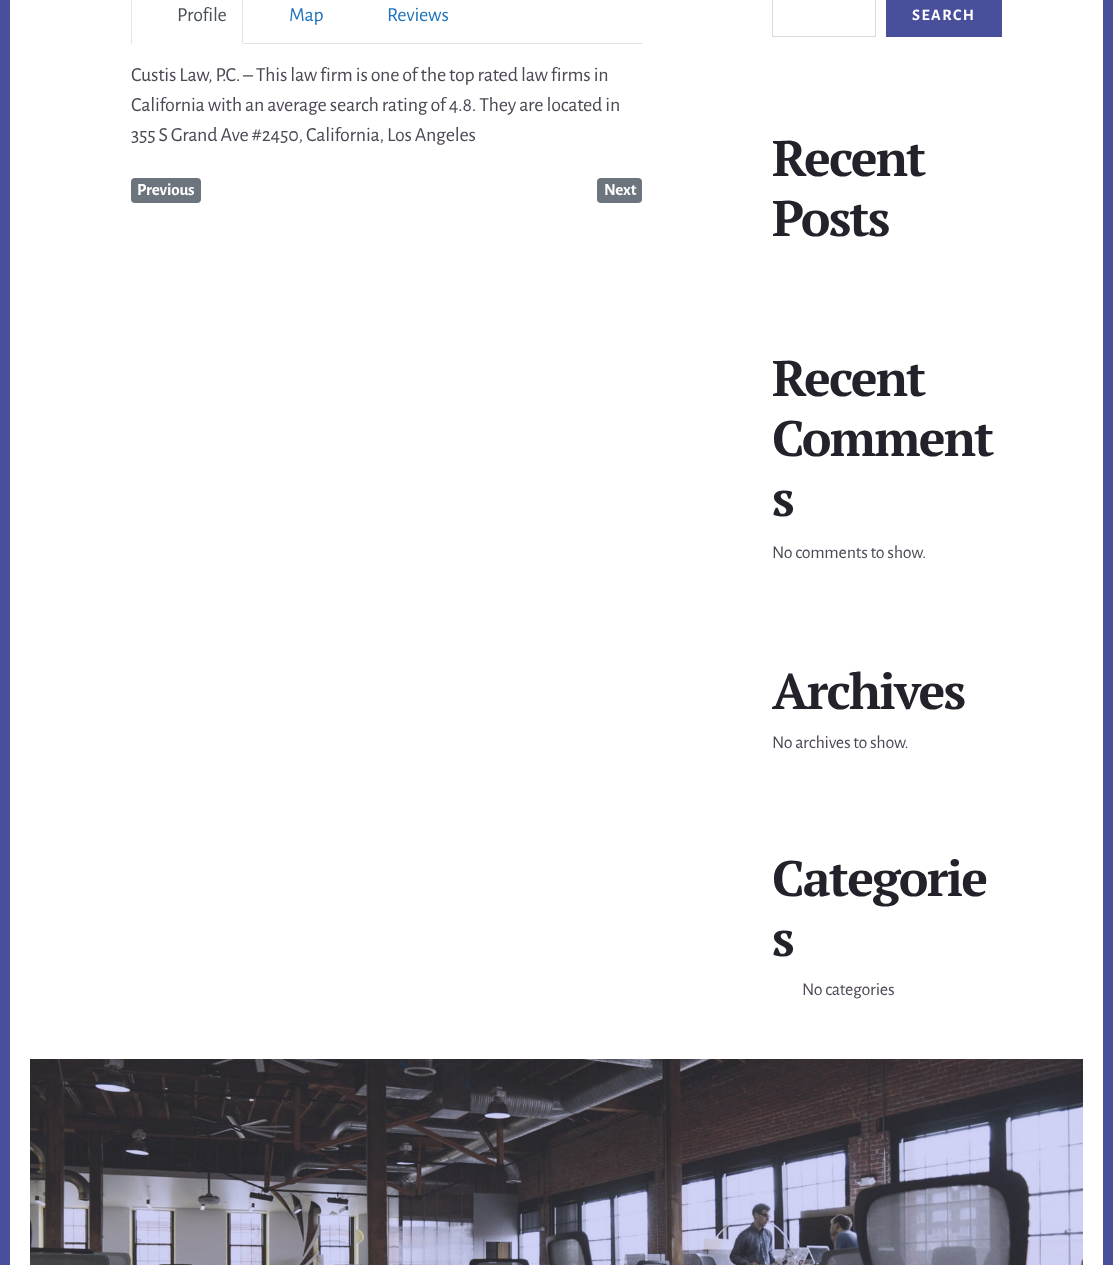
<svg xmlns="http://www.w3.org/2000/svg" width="1113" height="1265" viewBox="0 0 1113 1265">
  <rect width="100%" height="100%" fill="rgb(74,79,155)"/>
  <rect x="10" y="0" width="1093" height="1265" fill="rgb(255,255,255)"/>
  <rect x="243" y="43" width="399" height="1" fill="rgb(222,226,230)"/>
  <path d="M243 44V-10L242-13L241-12C243-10 242 37 242 43Z" fill="rgb(222,226,230)"/>
  <path d="M243 44L242 43H132L131 44Z" fill="rgb(255,255,255)"/>
  <path d="M131 44L132 43C132 37 131-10 133-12L132-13L131-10Z" fill="rgb(222,226,230)"/>
  <text x="177" y="21" font-family="Alegreya Sans" font-size="20" letter-spacing="-0.2" fill="rgb(73,80,87)">Profile</text>
  <g font-family="Alegreya Sans" font-size="20" letter-spacing="-0.2" fill="rgb(30,115,190)">
    <text x="289" y="21">Map</text>
    <text x="387" y="21">Reviews</text>
  </g>
  <g font-family="Alegreya Sans" font-size="20" letter-spacing="-0.2" fill="rgb(78,71,86)">
    <text>
      <tspan x="131" y="81">Custis Law, P.C. – This law firm is one of the top rated law firms in</tspan>
      <tspan x="131" y="111">California with an average search rating of 4.8. They are located in</tspan>
      <tspan x="131" y="141">355 S Grand Ave #2450, California, Los Angeles</tspan>
    </text>
  </g>
  <rect x="131" y="178" width="70" height="25" rx="4" fill="rgb(108,117,125)"/>
  <text x="137" y="195" font-family="Alegreya Sans" font-size="17" font-weight="bold" letter-spacing="-0.2" fill="rgb(255,255,255)">Previous</text>
  <rect x="597" y="178" width="45" height="25" rx="4" fill="rgb(108,117,125)"/>
  <text x="604" y="195" font-family="Alegreya Sans" font-size="17" font-weight="bold" letter-spacing="-0.2" fill="rgb(255,255,255)">Next</text>
  <rect x="772.5" y="-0.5" width="103" height="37" fill="none" stroke="rgb(220,218,221)"/>
  <rect x="886" y="0" width="116" height="37" fill="rgb(74,79,155)"/>
  <text x="912" y="20" font-family="Alegreya Sans" font-size="16" font-weight="bold" letter-spacing="1.5" fill="rgb(255,255,255)">SEARCH</text>
  <g font-family="PT Serif" font-size="50" font-weight="bold" letter-spacing="-1.75" fill="rgb(37,33,42)">
    <text>
      <tspan x="772" y="176">Recent</tspan>
      <tspan x="772" y="236">Posts</tspan>
    </text>
    <text>
      <tspan x="772" y="396">Recent</tspan>
      <tspan x="772" y="456">Comment</tspan>
      <tspan x="772" y="516">s</tspan>
    </text>
  </g>
  <text x="772" y="558" font-family="Alegreya Sans" font-size="18" letter-spacing="-0.2" fill="rgb(78,71,86)">No comments to show.</text>
  <text x="772" y="709" font-family="PT Serif" font-size="50" font-weight="bold" letter-spacing="-1.75" fill="rgb(37,33,42)">Archives</text>
  <text x="772" y="748" font-family="Alegreya Sans" font-size="18" letter-spacing="-0.2" fill="rgb(78,71,86)">No archives to show.</text>
  <g font-family="PT Serif" font-size="50" font-weight="bold" letter-spacing="-1.75" fill="rgb(37,33,42)">
    <text>
      <tspan x="772" y="896">Categorie</tspan>
      <tspan x="772" y="956">s</tspan>
    </text>
  </g>
  <text x="802" y="995" font-family="Alegreya Sans" font-size="18" letter-spacing="-0.2" fill="rgb(78,71,86)">No categories</text>
  <image x="30" y="1059" width="1053" height="206" href="pic1.png"/>
</svg>
